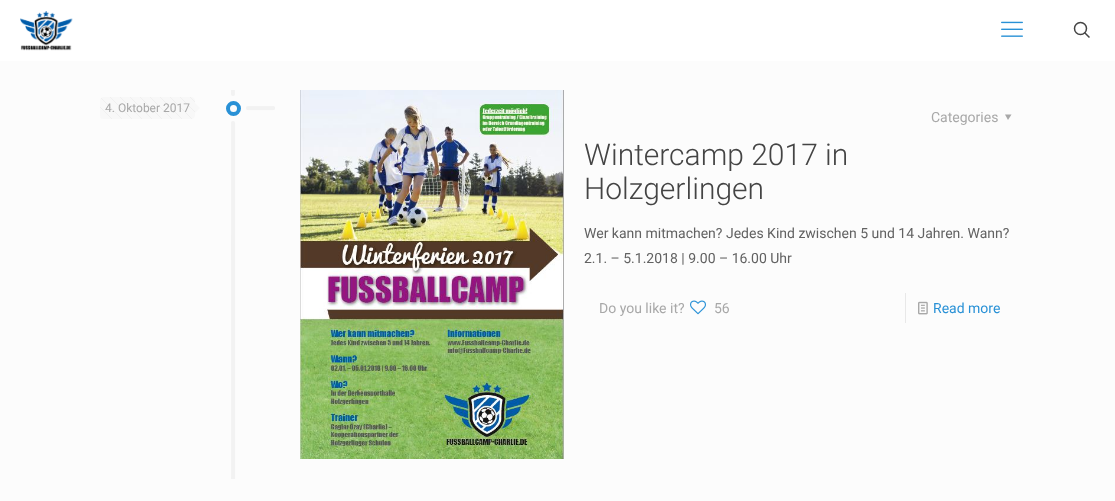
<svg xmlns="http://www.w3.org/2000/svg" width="1115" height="501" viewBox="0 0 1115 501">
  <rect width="100%" height="100%" fill="rgb(252,252,252)"/>
  <rect x="0" y="0" width="1115" height="61" fill="rgb(255,255,255)"/>
  <image x="20" y="11" width="53" height="40" href="pic1.png"/>
  <image x="1001" y="21" width="22" height="16" href="pic2.png"/>
  <circle cx="1080.5" cy="28.5" r="6" fill="none" stroke="rgb(68,68,68)" stroke-width="1.5"/>
  <path d="M1084.5 32.5L1089.5 37.5" fill="none" stroke="rgb(68,68,68)" stroke-width="1.5"/>
  <image x="231" y="90" width="44" height="389" href="pic3.png"/>
  <rect x="100" y="97" width="95" height="22" rx="4" fill="rgb(248,248,248)"/>
  <image x="100" y="97" width="95" height="22" href="pic4.png"/>
  <text x="105" y="112" font-family="Roboto" font-size="12" fill="rgb(168,168,168)">4. Oktober 2017</text>
  <path d="M195 113V103L200 108Z" fill="rgb(248,248,248)"/>
  <circle cx="233.5" cy="108.5" r="5.5" fill="none" stroke="rgb(41,145,214)" stroke-width="4"/>
  <image x="300" y="90" width="264" height="369" href="pic5.png"/>
  <text x="931" y="122" font-family="Roboto" font-size="14" fill="rgb(168,168,168)">Categories</text>
  <path d="M1011.5 114.5L1008 120L1005 114.5Z" fill="rgb(168,168,168)"/>
  <g font-family="Roboto" font-size="30" font-weight="300" fill="rgb(68,68,68)">
    <text>
      <tspan x="584" y="165">Wintercamp 2017 in</tspan>
      <tspan x="584" y="199">Holzgerlingen</tspan>
    </text>
  </g>
  <g font-family="Roboto" font-size="14" fill="rgb(98,98,98)">
    <text>
      <tspan x="584" y="238">Wer kann mitmachen? Jedes Kind zwischen 5 und 14 Jahren. Wann?</tspan>
      <tspan x="584" y="263">2.1. – 5.1.2018 | 9.00 – 16.00 Uhr</tspan>
    </text>
  </g>
  <text x="599" y="313" font-family="Roboto" font-size="14" fill="rgb(168,168,168)">Do you like it?</text>
  <image x="690" y="300" width="16" height="15" href="pic6.png"/>
  <text x="714" y="313" font-family="Roboto" font-size="14" fill="rgb(168,168,168)">56</text>
  <rect x="905" y="293" width="1" height="30" fill="rgb(232,232,232)"/>
  <image x="918" y="301" width="10" height="14" href="pic7.png"/>
  <text x="933" y="313" font-family="Roboto" font-size="14" fill="rgb(41,145,214)">Read more</text>
</svg>
